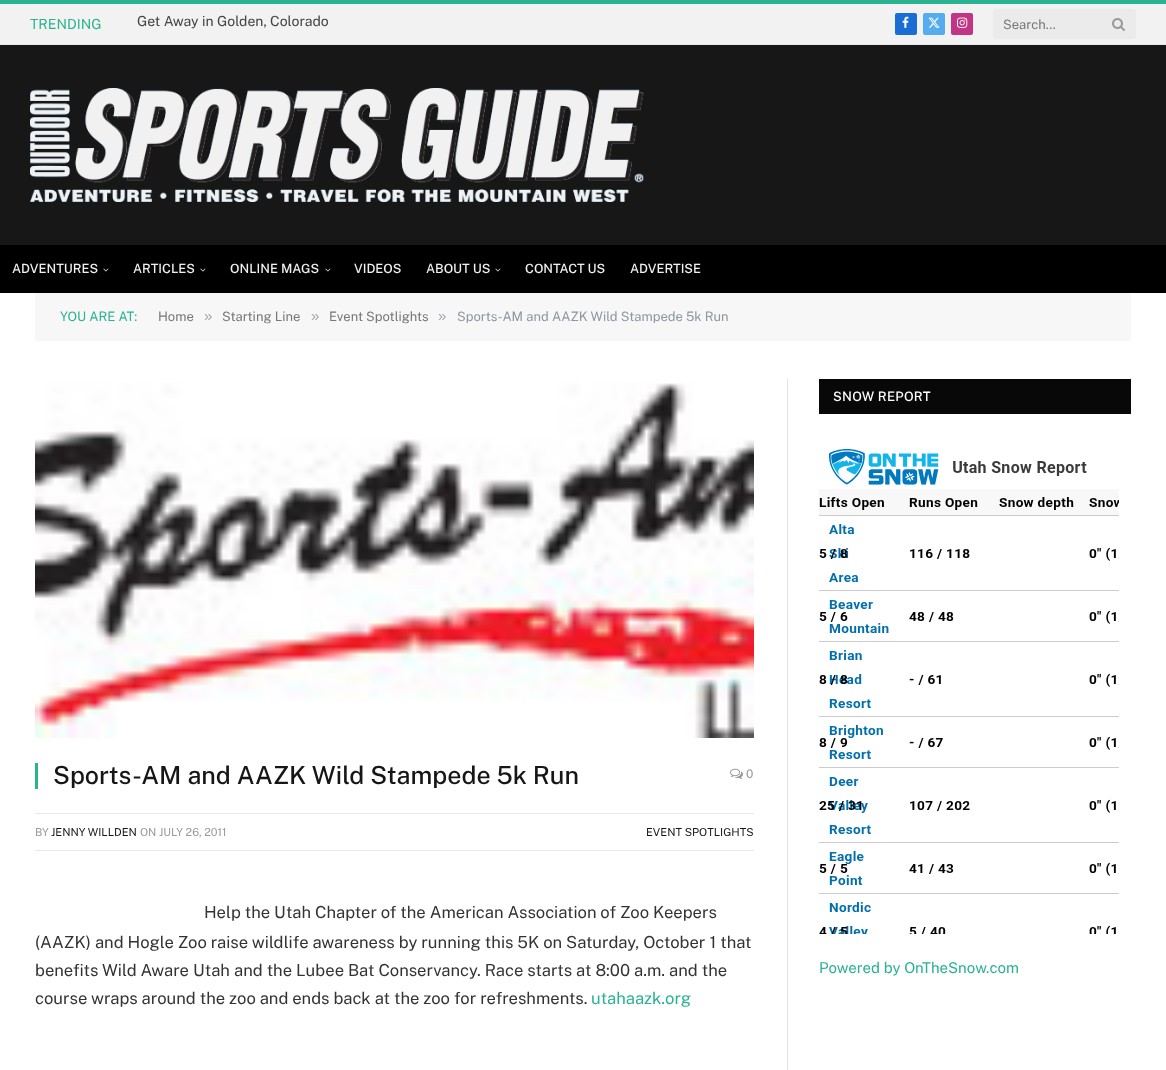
<svg xmlns="http://www.w3.org/2000/svg" width="1166" height="1070" viewBox="0 0 1166 1070">
  <rect width="100%" height="100%" fill="rgb(255,255,255)"/>
  <rect x="0" y="4" width="1166" height="40" fill="rgb(242,242,242)"/>
  <rect x="0" y="0" width="1166" height="4" fill="rgb(42,179,145)"/>
  <rect x="0" y="44" width="1166" height="1" fill="rgb(232,232,232)"/>
  <text x="30" y="29" font-family="Public Sans" font-size="14" fill="rgb(42,179,145)">TRENDING</text>
  <text x="137" y="26" font-family="Public Sans" font-size="14" fill="rgb(68,68,68)">Get Away in Golden, Colorado</text>
  <rect x="895" y="13" width="22" height="22" rx="2" fill="rgb(26,109,212)"/>
  <image x="902" y="16" width="7" height="12" href="pic1.png"/>
  <rect x="923" y="13" width="22" height="22" rx="2" fill="rgb(85,172,239)"/>
  <image x="928" y="17" width="12" height="11" href="pic2.png"/>
  <rect x="951" y="13" width="22" height="22" rx="2" fill="rgb(193,53,132)"/>
  <image x="957" y="17" width="11" height="11" href="pic3.png"/>
  <rect x="993" y="9" width="143" height="30" rx="2" fill="rgb(235,235,235)"/>
  <text x="1003" y="29" font-family="Public Sans" font-size="13" fill="rgb(119,119,119)">Search...</text>
  <image x="1112" y="18" width="13" height="13" href="pic4.png"/>
  <rect x="0" y="45" width="1166" height="200" fill="rgb(23,23,23)"/>
  <image x="30" y="88" width="614" height="114" href="pic5.png"/>
  <rect x="0" y="245" width="1166" height="48" fill="rgb(0,0,0)"/>
  <text x="12" y="273" font-family="Public Sans" font-size="12.75" font-weight="500" fill="rgb(240,240,240)">ADVENTURES</text>
  <image x="103" y="268" width="6" height="4" href="pic6.png"/>
  <text x="133" y="273" font-family="Public Sans" font-size="12.75" font-weight="500" fill="rgb(240,240,240)">ARTICLES</text>
  <image x="200" y="268" width="6" height="4" href="pic6.png"/>
  <text x="230" y="273" font-family="Public Sans" font-size="12.75" font-weight="500" fill="rgb(240,240,240)">ONLINE MAGS</text>
  <image x="325" y="268" width="6" height="4" href="pic6.png"/>
  <g font-family="Public Sans" font-size="12.75" font-weight="500" fill="rgb(240,240,240)">
    <text x="354" y="273">VIDEOS</text>
    <text x="426" y="273">ABOUT US</text>
  </g>
  <image x="495" y="268" width="6" height="4" href="pic6.png"/>
  <g font-family="Public Sans" font-size="12.75" font-weight="500" fill="rgb(240,240,240)">
    <text x="525" y="273">CONTACT US</text>
    <text x="630" y="273">ADVERTISE</text>
  </g>
  <rect x="35" y="293" width="1096" height="48" fill="rgb(247,247,247)"/>
  <text x="60" y="321" font-family="Public Sans" font-size="13" fill="rgb(42,179,145)">YOU ARE AT:</text>
  <text x="158" y="321" font-family="Public Sans" font-size="13" fill="rgb(119,119,119)">Home</text>
  <text x="204" y="321" font-family="Liberation Sans" font-size="15" fill="rgb(162,170,178)">»</text>
  <text x="222" y="321" font-family="Public Sans" font-size="13" fill="rgb(119,119,119)">Starting Line</text>
  <text x="311" y="321" font-family="Liberation Sans" font-size="15" fill="rgb(162,170,178)">»</text>
  <text x="329" y="321" font-family="Public Sans" font-size="13" fill="rgb(119,119,119)">Event Spotlights</text>
  <text x="438" y="321" font-family="Liberation Sans" font-size="15" fill="rgb(162,170,178)">»</text>
  <text x="457" y="321" font-family="Public Sans" font-size="13" fill="rgb(141,151,161)">Sports-AM and AAZK Wild Stampede 5k Run</text>
  <image x="35" y="383" width="719" height="355" href="pic7.png"/>
  <rect x="35" y="763" width="3" height="26" fill="rgb(42,179,145)"/>
  <text x="53" y="784" font-family="Public Sans" font-size="25" font-weight="500" fill="rgb(22,22,22)">Sports-AM and AAZK Wild Stampede 5k Run</text>
  <image x="730" y="768" width="13" height="11" href="pic8.png"/>
  <text x="746" y="778" font-family="Public Sans" font-size="12" fill="rgb(153,153,153)">0</text>
  <rect x="35" y="813" width="719" height="1" fill="rgb(232,232,232)"/>
  <rect x="35" y="850" width="719" height="1" fill="rgb(232,232,232)"/>
  <text x="35" y="836" font-family="Public Sans" font-size="11" fill="rgb(153,153,153)">BY</text>
  <text x="51" y="836" font-family="Public Sans" font-size="11" fill="rgb(22,22,22)">JENNY WILLDEN</text>
  <text x="140" y="836" font-family="Public Sans" font-size="11" fill="rgb(153,153,153)">ON JULY 26, 2011</text>
  <text x="646" y="836" font-family="Public Sans" font-size="11" fill="rgb(22,22,22)">EVENT SPOTLIGHTS</text>
  <g font-family="Public Sans" font-size="16.6" fill="rgb(51,51,51)">
    <text x="204" y="918">Help the Utah Chapter of the American Association of Zoo Keepers</text>
    <text>
      <tspan x="35" y="948">(AAZK) and Hogle Zoo raise wildlife awareness by running this 5K on Saturday, October 1 that</tspan>
      <tspan x="35" y="976">benefits Wild Aware Utah and the Lubee Bat Conservancy. Race starts at 8:00 a.m. and the</tspan>
      <tspan x="35" y="1004">course wraps around the zoo and ends back at the zoo for refreshments.</tspan>
    </text>
  </g>
  <text x="591" y="1004" font-family="Public Sans" font-size="16.6" fill="rgb(42,179,145)">utahaazk.org</text>
  <rect x="787" y="379" width="1" height="691" fill="rgb(226,226,226)"/>
  <rect x="819" y="379" width="312" height="35" fill="rgb(8,8,8)"/>
  <text x="833" y="401" font-family="Public Sans" font-size="13" font-weight="500" letter-spacing="0.25" fill="rgb(255,255,255)">SNOW REPORT</text>
  <image x="819" y="449" width="300" height="485" href="pic9.png"/>
  <text x="819" y="973" font-family="Public Sans" font-size="15" fill="rgb(42,179,145)">Powered by OnTheSnow.com</text>
</svg>
